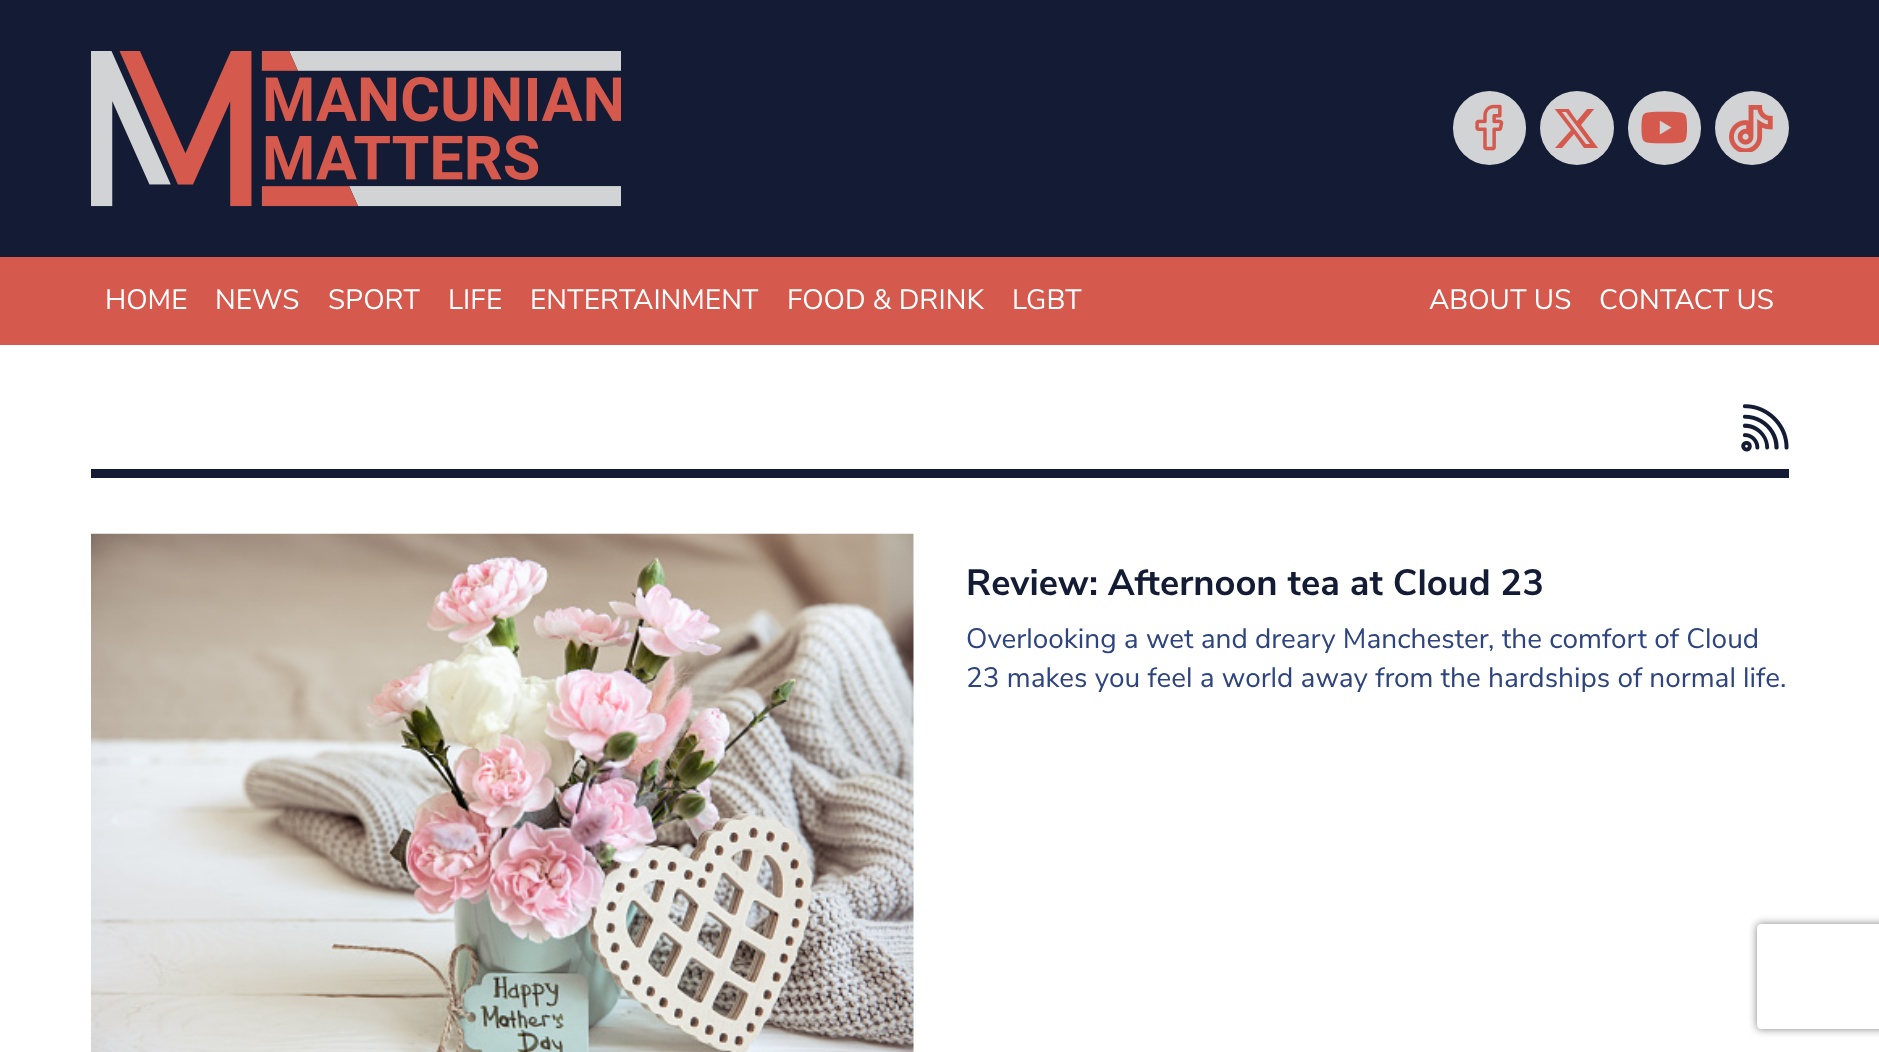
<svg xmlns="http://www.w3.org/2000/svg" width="1879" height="1052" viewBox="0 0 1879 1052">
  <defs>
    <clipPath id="clip1"><rect x="1554" y="109" width="44" height="40"/></clipPath>
    <clipPath id="clip2"><path d="M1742 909H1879V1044H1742ZM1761 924H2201C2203 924 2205 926 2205 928V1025C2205 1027 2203 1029 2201 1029H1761C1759 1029 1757 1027 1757 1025V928C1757 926 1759 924 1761 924Z" clip-rule="evenodd"/></clipPath>
  </defs>
  <rect width="100%" height="100%" fill="rgb(255,255,255)"/>
  <rect x="0" y="0" width="1879" height="257" fill="rgb(19,28,52)"/>
  <image x="91" y="51" width="530" height="156" href="pic1.png"/>
  <rect x="1453" y="91" width="73" height="74" rx="36.5" fill="rgb(209,211,212)"/>
  <image x="1475" y="104" width="29" height="47" href="pic2.png"/>
  <circle cx="1577" cy="128" r="37" fill="rgb(209,211,212)"/>
  <g clip-path="url(#clip1)">
    <path d="M1588 108H1595L1581 125L1598 148H1584L1574 134L1562 148H1555L1571 130L1554 108H1568L1577 121ZM1586 144H1590L1566 112H1562Z" fill="rgb(214,89,77)"/>
  </g>
  <rect x="1628" y="91" width="73" height="74" rx="36.5" fill="rgb(209,211,212)"/>
  <image x="1641" y="111" width="46" height="33" href="pic3.png"/>
  <circle cx="1752" cy="128" r="37" fill="rgb(209,211,212)"/>
  <image x="1729" y="105" width="44" height="47" href="pic4.png"/>
  <rect x="0" y="257" width="1879" height="88" fill="rgb(213,89,77)"/>
  <g font-family="Nunito Sans" font-size="28" fill="rgb(255,255,255)">
    <text x="105" y="309">HOME</text>
    <text x="215" y="309">NEWS</text>
    <text x="328" y="309">SPORT</text>
    <text x="448" y="309">LIFE</text>
    <text x="530" y="309">ENTERTAINMENT</text>
    <text x="787" y="309">FOOD &amp; DRINK</text>
    <text x="1012" y="309">LGBT</text>
    <text x="1429" y="309">ABOUT US</text>
    <text x="1599" y="309">CONTACT US</text>
  </g>
  <rect x="91" y="469" width="1698" height="9" fill="rgb(19,28,52)"/>
  <image x="1741" y="404" width="48" height="48" href="pic5.png"/>
  <image x="91" y="533" width="823" height="519" href="pic6.png"/>
  <text x="966" y="595" font-family="Nunito Sans" font-size="36.4" font-weight="bold" fill="rgb(19,28,52)">Review: Afternoon tea at Cloud 23</text>
  <g font-family="Nunito Sans" font-size="28" fill="rgb(46,68,127)">
    <text>
      <tspan x="966" y="648">Overlooking a wet and dreary Manchester, the comfort of Cloud</tspan>
      <tspan x="966" y="687">23 makes you feel a world away from the hardships of normal life.</tspan>
    </text>
  </g>
  <g clip-path="url(#clip2)">
    <rect x="1757" y="924" width="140" height="105" rx="4" fill="rgb(128,128,128)" filter="blur(4.5px)"/>
  </g>
</svg>
